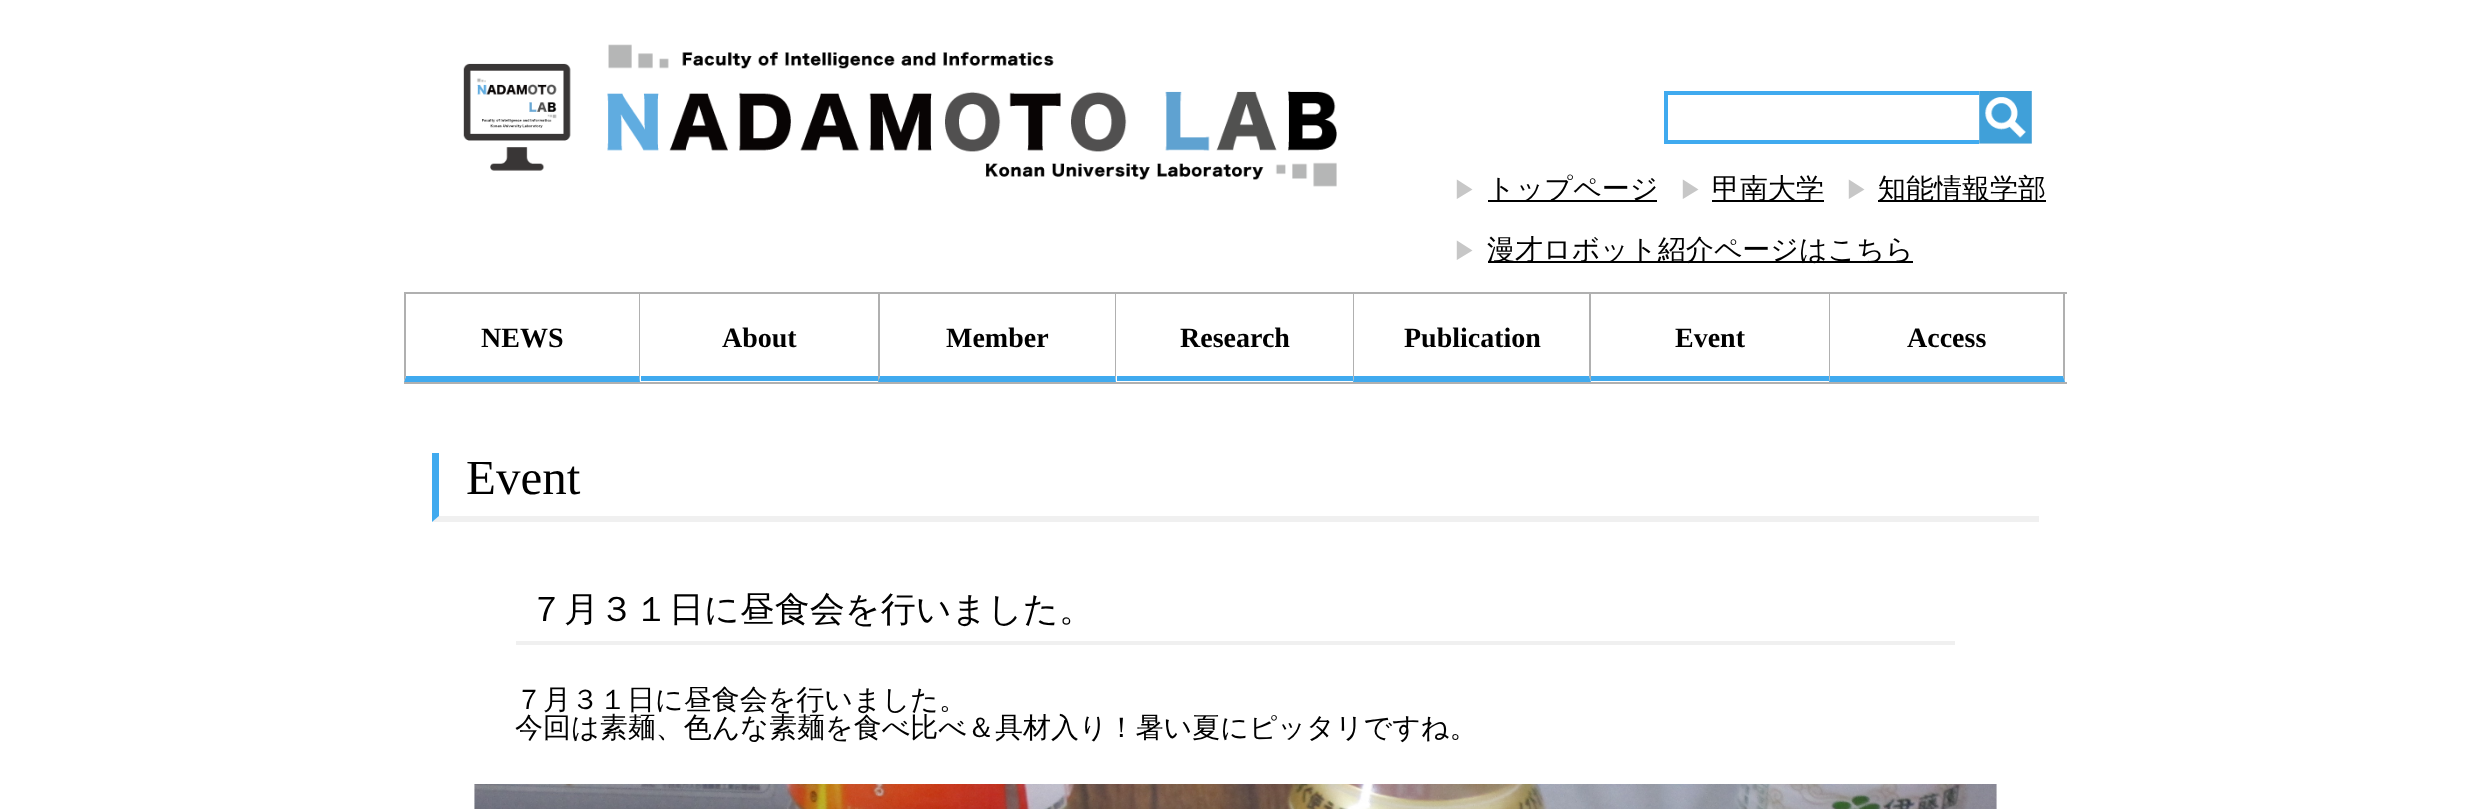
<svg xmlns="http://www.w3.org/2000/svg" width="2469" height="809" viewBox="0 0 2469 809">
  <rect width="100%" height="100%" fill="rgb(255,255,255)"/>
  <image x="463" y="44" width="874" height="143" href="pic1.png"/>
  <rect x="1666" y="93" width="318" height="49" fill="none" stroke="rgb(64,170,239)" stroke-width="4"/>
  <rect x="1979" y="91" width="53" height="53" fill="rgb(239,239,239)"/>
  <image x="1979" y="91" width="53" height="53" href="pic2.png"/>
  <text x="1453" y="198" font-family="WenQuanYi Zen Hei" font-size="24" font-weight="500" fill="rgb(199,199,199)">▶︎</text>
  <rect x="1488" y="200" width="169" height="2" fill="rgb(0,0,0)"/>
  <text x="1487" y="198" font-family="WenQuanYi Zen Hei" font-size="28" font-weight="500" fill="rgb(0,0,0)">トップページ</text>
  <text x="1679" y="198" font-family="WenQuanYi Zen Hei" font-size="24" font-weight="500" fill="rgb(199,199,199)">▶︎</text>
  <rect x="1712" y="200" width="112" height="2" fill="rgb(0,0,0)"/>
  <text x="1712" y="198" font-family="WenQuanYi Zen Hei" font-size="28" font-weight="500" fill="rgb(0,0,0)">甲南大学</text>
  <text x="1845" y="198" font-family="WenQuanYi Zen Hei" font-size="24" font-weight="500" fill="rgb(199,199,199)">▶︎</text>
  <rect x="1878" y="200" width="168" height="2" fill="rgb(0,0,0)"/>
  <text x="1878" y="198" font-family="WenQuanYi Zen Hei" font-size="28" font-weight="500" fill="rgb(0,0,0)">知能情報学部</text>
  <text x="1453" y="259" font-family="WenQuanYi Zen Hei" font-size="24" font-weight="500" fill="rgb(199,199,199)">▶︎</text>
  <rect x="1488" y="261" width="425" height="2" fill="rgb(0,0,0)"/>
  <text x="1487" y="259" font-family="WenQuanYi Zen Hei" font-size="28" font-weight="500" fill="rgb(0,0,0)">漫才ロボット紹介ページはこちら</text>
  <rect x="404" y="292" width="1663" height="2" fill="rgb(176,176,176)"/>
  <rect x="404" y="382" width="1663" height="2" fill="rgb(176,176,176)"/>
  <path d="M640 294V382L639 376V294Z" fill="rgb(176,176,176)"/>
  <path d="M640 382H404L406 376H639Z" fill="rgb(64,170,239)"/>
  <path d="M404 382V294H406V376Z" fill="rgb(176,176,176)"/>
  <text x="481" y="347" font-family="Liberation Serif" font-size="28" font-weight="bold" fill="rgb(0,0,0)">NEWS</text>
  <rect x="641" y="376" width="238" height="5" fill="rgb(64,170,239)"/>
  <text x="722" y="347" font-family="Liberation Serif" font-size="28" font-weight="bold" fill="rgb(0,0,0)">About</text>
  <path d="M1116 294V382L1115 376V294Z" fill="rgb(176,176,176)"/>
  <path d="M1116 382H878L880 376H1115Z" fill="rgb(64,170,239)"/>
  <path d="M878 382V294H880V376Z" fill="rgb(176,176,176)"/>
  <text x="946" y="347" font-family="Liberation Serif" font-size="28" font-weight="bold" fill="rgb(0,0,0)">Member</text>
  <rect x="1117" y="376" width="236" height="5" fill="rgb(64,170,239)"/>
  <text x="1180" y="347" font-family="Liberation Serif" font-size="28" font-weight="bold" fill="rgb(0,0,0)">Research</text>
  <path d="M1591 294V382L1589 376V294Z" fill="rgb(176,176,176)"/>
  <path d="M1591 382H1353L1354 376H1589Z" fill="rgb(64,170,239)"/>
  <path d="M1353 382V294H1354V376Z" fill="rgb(176,176,176)"/>
  <text x="1404" y="347" font-family="Liberation Serif" font-size="28" font-weight="bold" fill="rgb(0,0,0)">Publication</text>
  <rect x="1591" y="376" width="238" height="5" fill="rgb(64,170,239)"/>
  <text x="1675" y="347" font-family="Liberation Serif" font-size="28" font-weight="bold" fill="rgb(0,0,0)">Event</text>
  <path d="M2065 294V382L2063 376V294Z" fill="rgb(176,176,176)"/>
  <path d="M2065 382H1829L1830 376H2063Z" fill="rgb(64,170,239)"/>
  <path d="M1829 382V294H1830V376Z" fill="rgb(176,176,176)"/>
  <text x="1907" y="347" font-family="Liberation Serif" font-size="28" font-weight="bold" fill="rgb(0,0,0)">Access</text>
  <path d="M2039 522H432L439 516H2039Z" fill="rgb(240,240,240)"/>
  <path d="M432 522V453H439V516Z" fill="rgb(64,170,239)"/>
  <text x="466" y="494" font-family="Liberation Serif" font-size="49" fill="rgb(0,0,0)">Event</text>
  <rect x="516" y="641" width="1439" height="4" fill="rgb(240,240,240)"/>
  <text x="529" y="621" font-family="WenQuanYi Zen Hei" font-size="35" font-weight="500" fill="rgb(0,0,0)">７月３１日に昼食会を行いました。</text>
  <g font-family="WenQuanYi Zen Hei" font-size="28" font-weight="500" fill="rgb(0,0,0)">
    <text>
      <tspan x="515" y="709">７月３１日に昼食会を行いました。</tspan>
      <tspan x="515" y="737">今回は素麺、色んな素麺を食べ比べ＆具材入り！暑い夏にピッタリですね。</tspan>
    </text>
  </g>
  <image x="474" y="784" width="1523" height="25" href="pic3.png"/>
</svg>
